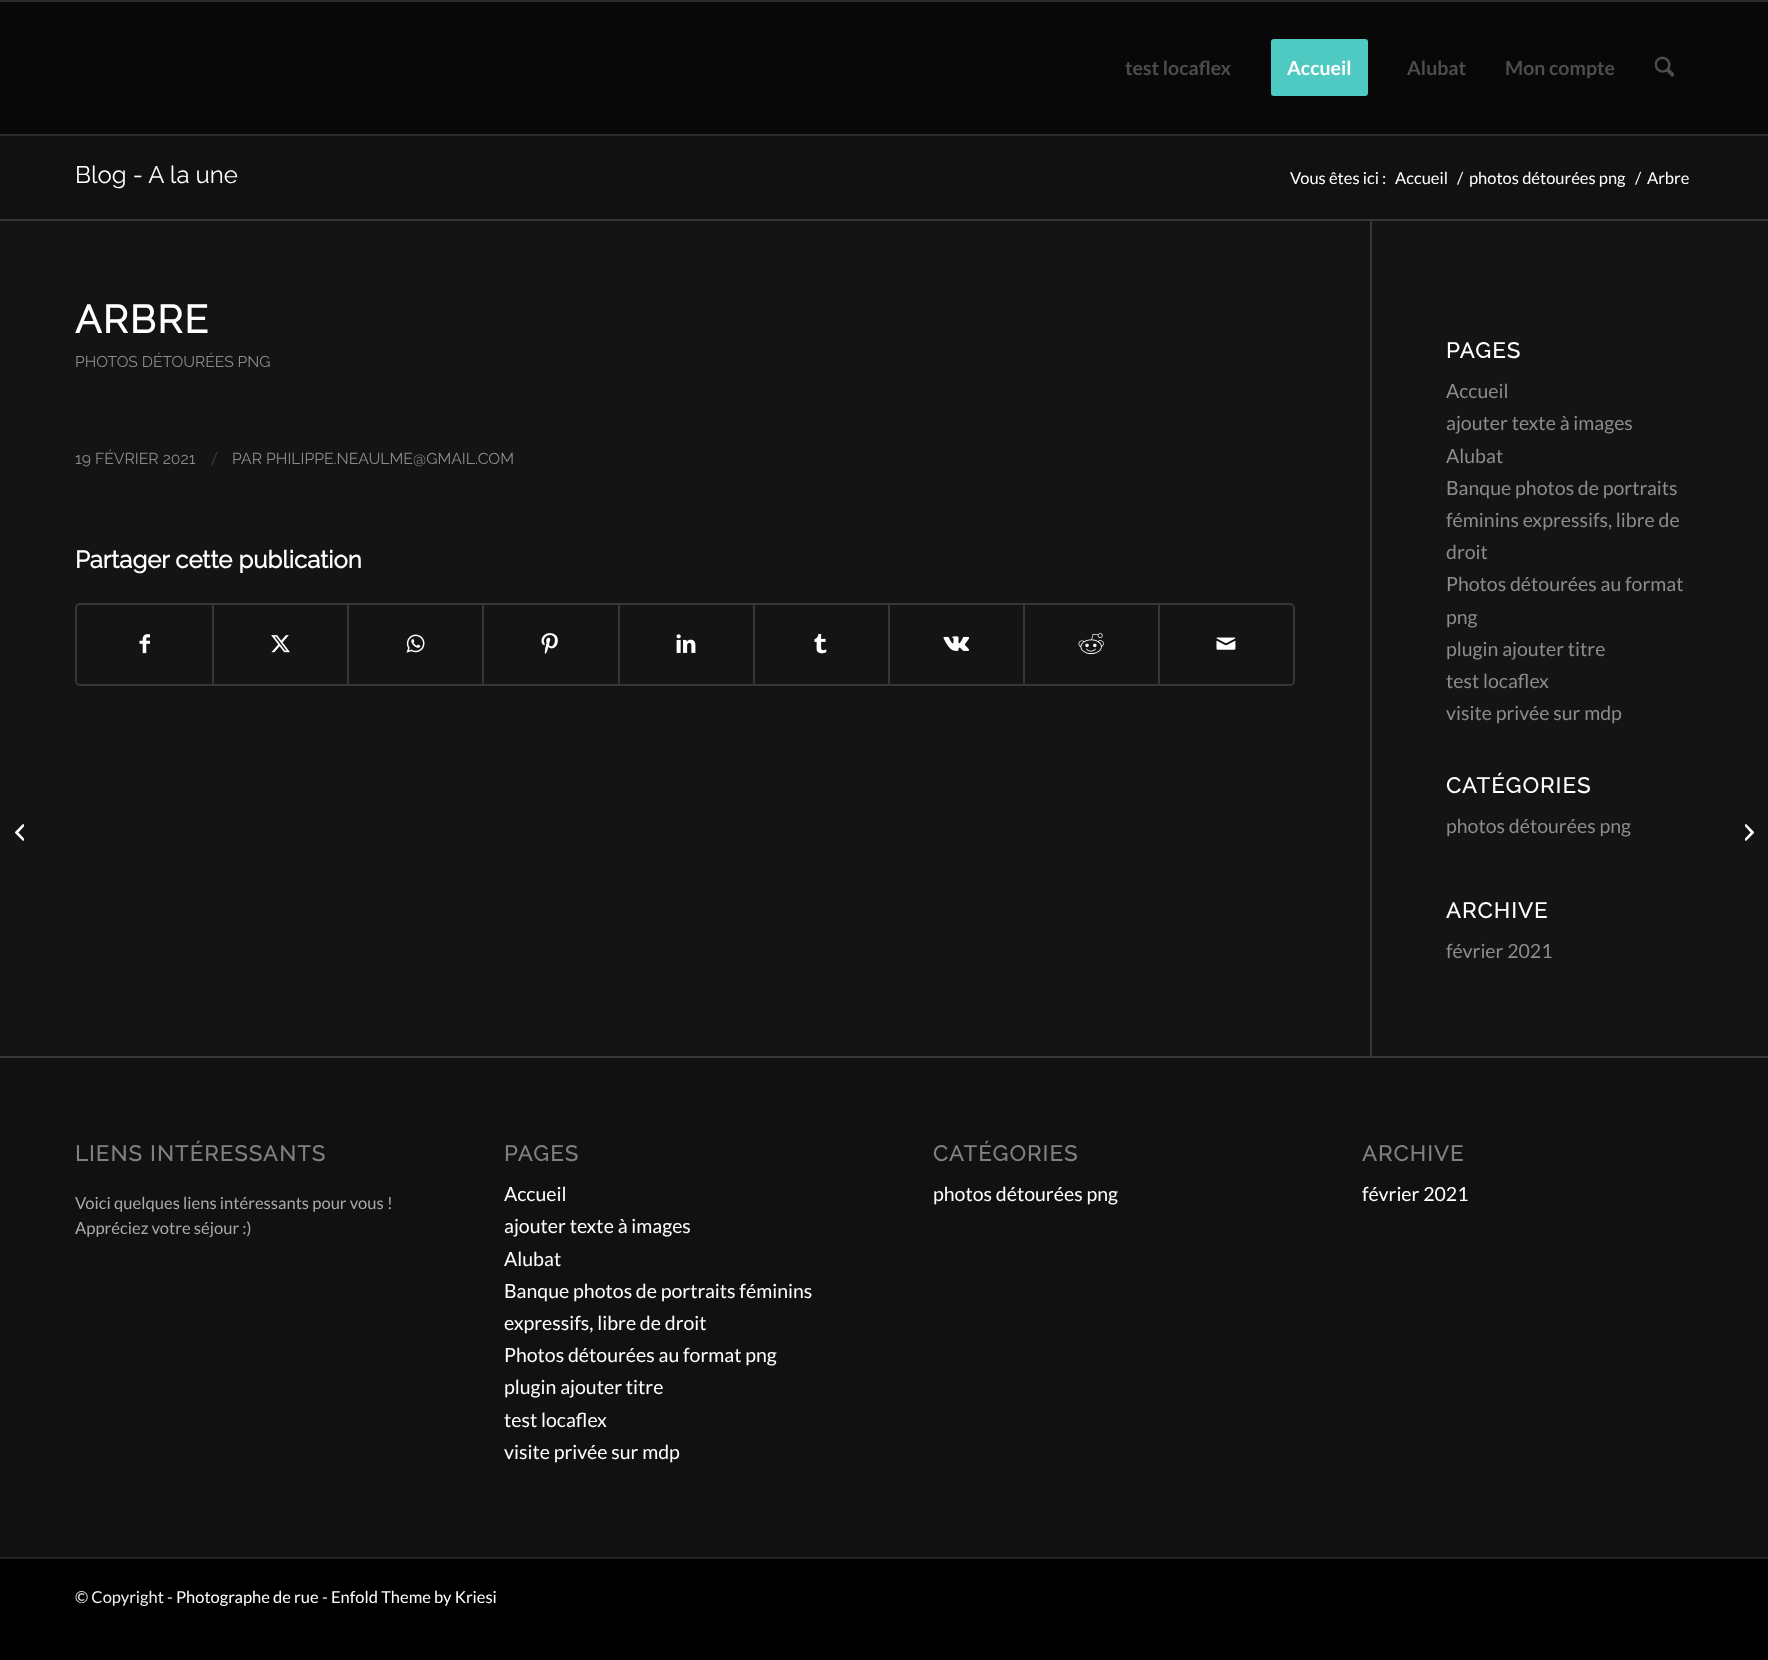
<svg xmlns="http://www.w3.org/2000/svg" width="1768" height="1660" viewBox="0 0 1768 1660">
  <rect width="100%" height="100%" fill="rgb(0,0,0)"/>
  <rect x="0" y="0" width="1768" height="2" fill="rgb(43,43,43)"/>
  <rect x="0" y="134" width="1768" height="2" fill="rgb(43,43,43)"/>
  <rect x="0" y="2" width="1768" height="130" fill="rgb(8,8,8)"/>
  <text x="1125" y="75" font-family="Lato" font-size="19.5" font-weight="bold" fill="rgb(77,77,77)">test locaflex</text>
  <rect x="1272.5" y="40.5" width="94" height="54" rx="1.5" fill="rgb(78,202,194)" stroke="rgb(78,202,194)" stroke-width="3"/>
  <text x="1287" y="75" font-family="Lato" font-size="19.5" font-weight="bold" fill="rgb(255,255,255)">Accueil</text>
  <g font-family="Lato" font-size="19.5" font-weight="bold" fill="rgb(77,77,77)">
    <text x="1407" y="75">Alubat</text>
    <text x="1505" y="75">Mon compte</text>
  </g>
  <image x="1655" y="56" width="19" height="21" href="pic1.png"/>
  <rect x="0" y="221" width="1768" height="835" fill="rgb(20,20,20)"/>
  <image x="15" y="824" width="9" height="17" href="pic2.png"/>
  <rect x="0" y="136" width="1768" height="83" fill="rgb(17,17,17)"/>
  <rect x="0" y="132" width="1768" height="2" fill="rgb(10,10,10)"/>
  <text x="75" y="183" font-family="Raleway" font-size="24" font-weight="100" fill="rgb(255,255,255)">Blog - A la une</text>
  <g font-family="Lato" font-size="16.5" fill="rgb(255,255,255)">
    <text x="1290" y="184">Vous êtes ici :</text>
    <text x="1395" y="184">Accueil</text>
    <text x="1457" y="184">/</text>
    <text x="1469" y="184">photos détourées png</text>
    <text x="1635" y="184">/</text>
    <text x="1647" y="184">Arbre</text>
  </g>
  <rect x="0" y="219" width="1768" height="2" fill="rgb(54,54,54)"/>
  <text x="75" y="333" font-family="Raleway" font-size="39" font-weight="bold" letter-spacing="1.5" fill="rgb(255,255,255)">ARBRE</text>
  <text x="75" y="367" font-family="Raleway" font-size="15.6" font-weight="100" fill="rgb(140,140,140)">PHOTOS DÉTOURÉES PNG</text>
  <text x="75" y="464" font-family="Raleway" font-size="15.75" font-weight="100" fill="rgb(140,140,140)">19 FÉVRIER 2021</text>
  <text x="211" y="465" font-family="Lato" font-size="18" fill="rgb(56,56,56)">/</text>
  <text x="232" y="464" font-family="Raleway" font-size="15.75" font-weight="100" fill="rgb(140,140,140)">PAR PHILIPPE.NEAULME@GMAIL.COM</text>
  <text x="75" y="568" font-family="Raleway" font-size="24" font-weight="bold" fill="rgb(255,255,255)">Partager cette publication</text>
  <rect x="76" y="604" width="1218" height="81" rx="4" fill="none" stroke="rgb(54,54,54)" stroke-width="2"/>
  <image x="139" y="634" width="11" height="20" href="pic3.png"/>
  <rect x="212" y="605" width="2" height="79" fill="rgb(54,54,54)"/>
  <image x="271" y="635" width="19" height="18" href="pic4.png"/>
  <rect x="347" y="605" width="2" height="79" fill="rgb(54,54,54)"/>
  <image x="406" y="634" width="19" height="19" href="pic5.png"/>
  <rect x="482" y="605" width="2" height="79" fill="rgb(54,54,54)"/>
  <image x="541" y="633" width="17" height="21" href="pic6.png"/>
  <rect x="618" y="605" width="2" height="79" fill="rgb(54,54,54)"/>
  <image x="676" y="634" width="20" height="19" href="pic7.png"/>
  <rect x="753" y="605" width="2" height="79" fill="rgb(54,54,54)"/>
  <image x="814" y="634" width="13" height="20" href="pic8.png"/>
  <rect x="888" y="605" width="2" height="79" fill="rgb(54,54,54)"/>
  <image x="943" y="636" width="27" height="15" href="pic9.png"/>
  <rect x="1023" y="605" width="2" height="79" fill="rgb(54,54,54)"/>
  <image x="1078" y="633" width="26" height="22" href="pic10.png"/>
  <rect x="1158" y="605" width="2" height="79" fill="rgb(54,54,54)"/>
  <image x="1216" y="637" width="20" height="13" href="pic11.png"/>
  <rect x="1370" y="221" width="2" height="835" fill="rgb(54,54,54)"/>
  <text x="1446" y="358" font-family="Raleway" font-size="21.5" font-weight="bold" letter-spacing="1.5" fill="rgb(255,255,255)">PAGES</text>
  <g font-family="Lato" font-size="19.5" fill="rgb(140,140,140)">
    <text>
      <tspan x="1446" y="398">Accueil</tspan>
      <tspan x="1446" y="430">ajouter texte à images</tspan>
      <tspan x="1446" y="463">Alubat</tspan>
      <tspan x="1446" y="495">Banque photos de portraits</tspan>
      <tspan x="1446" y="527">féminins expressifs, libre de</tspan>
      <tspan x="1446" y="559">droit</tspan>
      <tspan x="1446" y="591">Photos détourées au format</tspan>
      <tspan x="1446" y="624">png</tspan>
      <tspan x="1446" y="656">plugin ajouter titre</tspan>
      <tspan x="1446" y="688">test locaflex</tspan>
      <tspan x="1446" y="720">visite privée sur mdp</tspan>
    </text>
  </g>
  <text x="1446" y="793" font-family="Raleway" font-size="21.5" font-weight="bold" letter-spacing="1.5" fill="rgb(255,255,255)">CATÉGORIES</text>
  <text x="1446" y="833" font-family="Lato" font-size="19.5" fill="rgb(140,140,140)">photos détourées png</text>
  <text x="1446" y="918" font-family="Raleway" font-size="21.5" font-weight="bold" letter-spacing="1.5" fill="rgb(255,255,255)">ARCHIVE</text>
  <text x="1446" y="958" font-family="Lato" font-size="19.5" fill="rgb(140,140,140)">février 2021</text>
  <rect x="0" y="1058" width="1768" height="499" fill="rgb(17,17,17)"/>
  <rect x="0" y="1056" width="1768" height="2" fill="rgb(54,54,54)"/>
  <text x="75" y="1161" font-family="Raleway" font-size="21.5" font-weight="bold" letter-spacing="1.5" fill="rgb(128,128,128)">LIENS INTÉRESSANTS</text>
  <g font-family="Lato" font-size="16.6" fill="rgb(170,170,170)">
    <text>
      <tspan x="75" y="1209">Voici quelques liens intéressants pour vous !</tspan>
      <tspan x="75" y="1234">Appréciez votre séjour :)</tspan>
    </text>
  </g>
  <text x="504" y="1161" font-family="Raleway" font-size="21.5" font-weight="bold" letter-spacing="1.5" fill="rgb(128,128,128)">PAGES</text>
  <g font-family="Lato" font-size="19.5" fill="rgb(255,255,255)">
    <text>
      <tspan x="504" y="1201">Accueil</tspan>
      <tspan x="504" y="1233">ajouter texte à images</tspan>
      <tspan x="504" y="1266">Alubat</tspan>
      <tspan x="504" y="1298">Banque photos de portraits féminins</tspan>
      <tspan x="504" y="1330">expressifs, libre de droit</tspan>
      <tspan x="504" y="1362">Photos détourées au format png</tspan>
      <tspan x="504" y="1394">plugin ajouter titre</tspan>
      <tspan x="504" y="1427">test locaflex</tspan>
      <tspan x="504" y="1459">visite privée sur mdp</tspan>
    </text>
  </g>
  <text x="933" y="1161" font-family="Raleway" font-size="21.5" font-weight="bold" letter-spacing="1.5" fill="rgb(128,128,128)">CATÉGORIES</text>
  <text x="933" y="1201" font-family="Lato" font-size="19.5" fill="rgb(255,255,255)">photos détourées png</text>
  <text x="1362" y="1161" font-family="Raleway" font-size="21.5" font-weight="bold" letter-spacing="1.5" fill="rgb(128,128,128)">ARCHIVE</text>
  <text x="1362" y="1201" font-family="Lato" font-size="19.5" fill="rgb(255,255,255)">février 2021</text>
  <rect x="0" y="1557" width="1768" height="2" fill="rgb(34,34,34)"/>
  <text x="75" y="1603" font-family="Lato" font-size="16.5" fill="rgb(238,238,238)">© Copyright -</text>
  <text x="176" y="1603" font-family="Lato" font-size="16.5" fill="rgb(255,255,255)">Photographe de rue</text>
  <text x="322" y="1603" font-family="Lato" font-size="16.5" fill="rgb(238,238,238)">-</text>
  <text x="331" y="1603" font-family="Lato" font-size="16.5" fill="rgb(255,255,255)">Enfold Theme by Kriesi</text>
  <image x="1745" y="824" width="9" height="17" href="pic12.png"/>
</svg>
